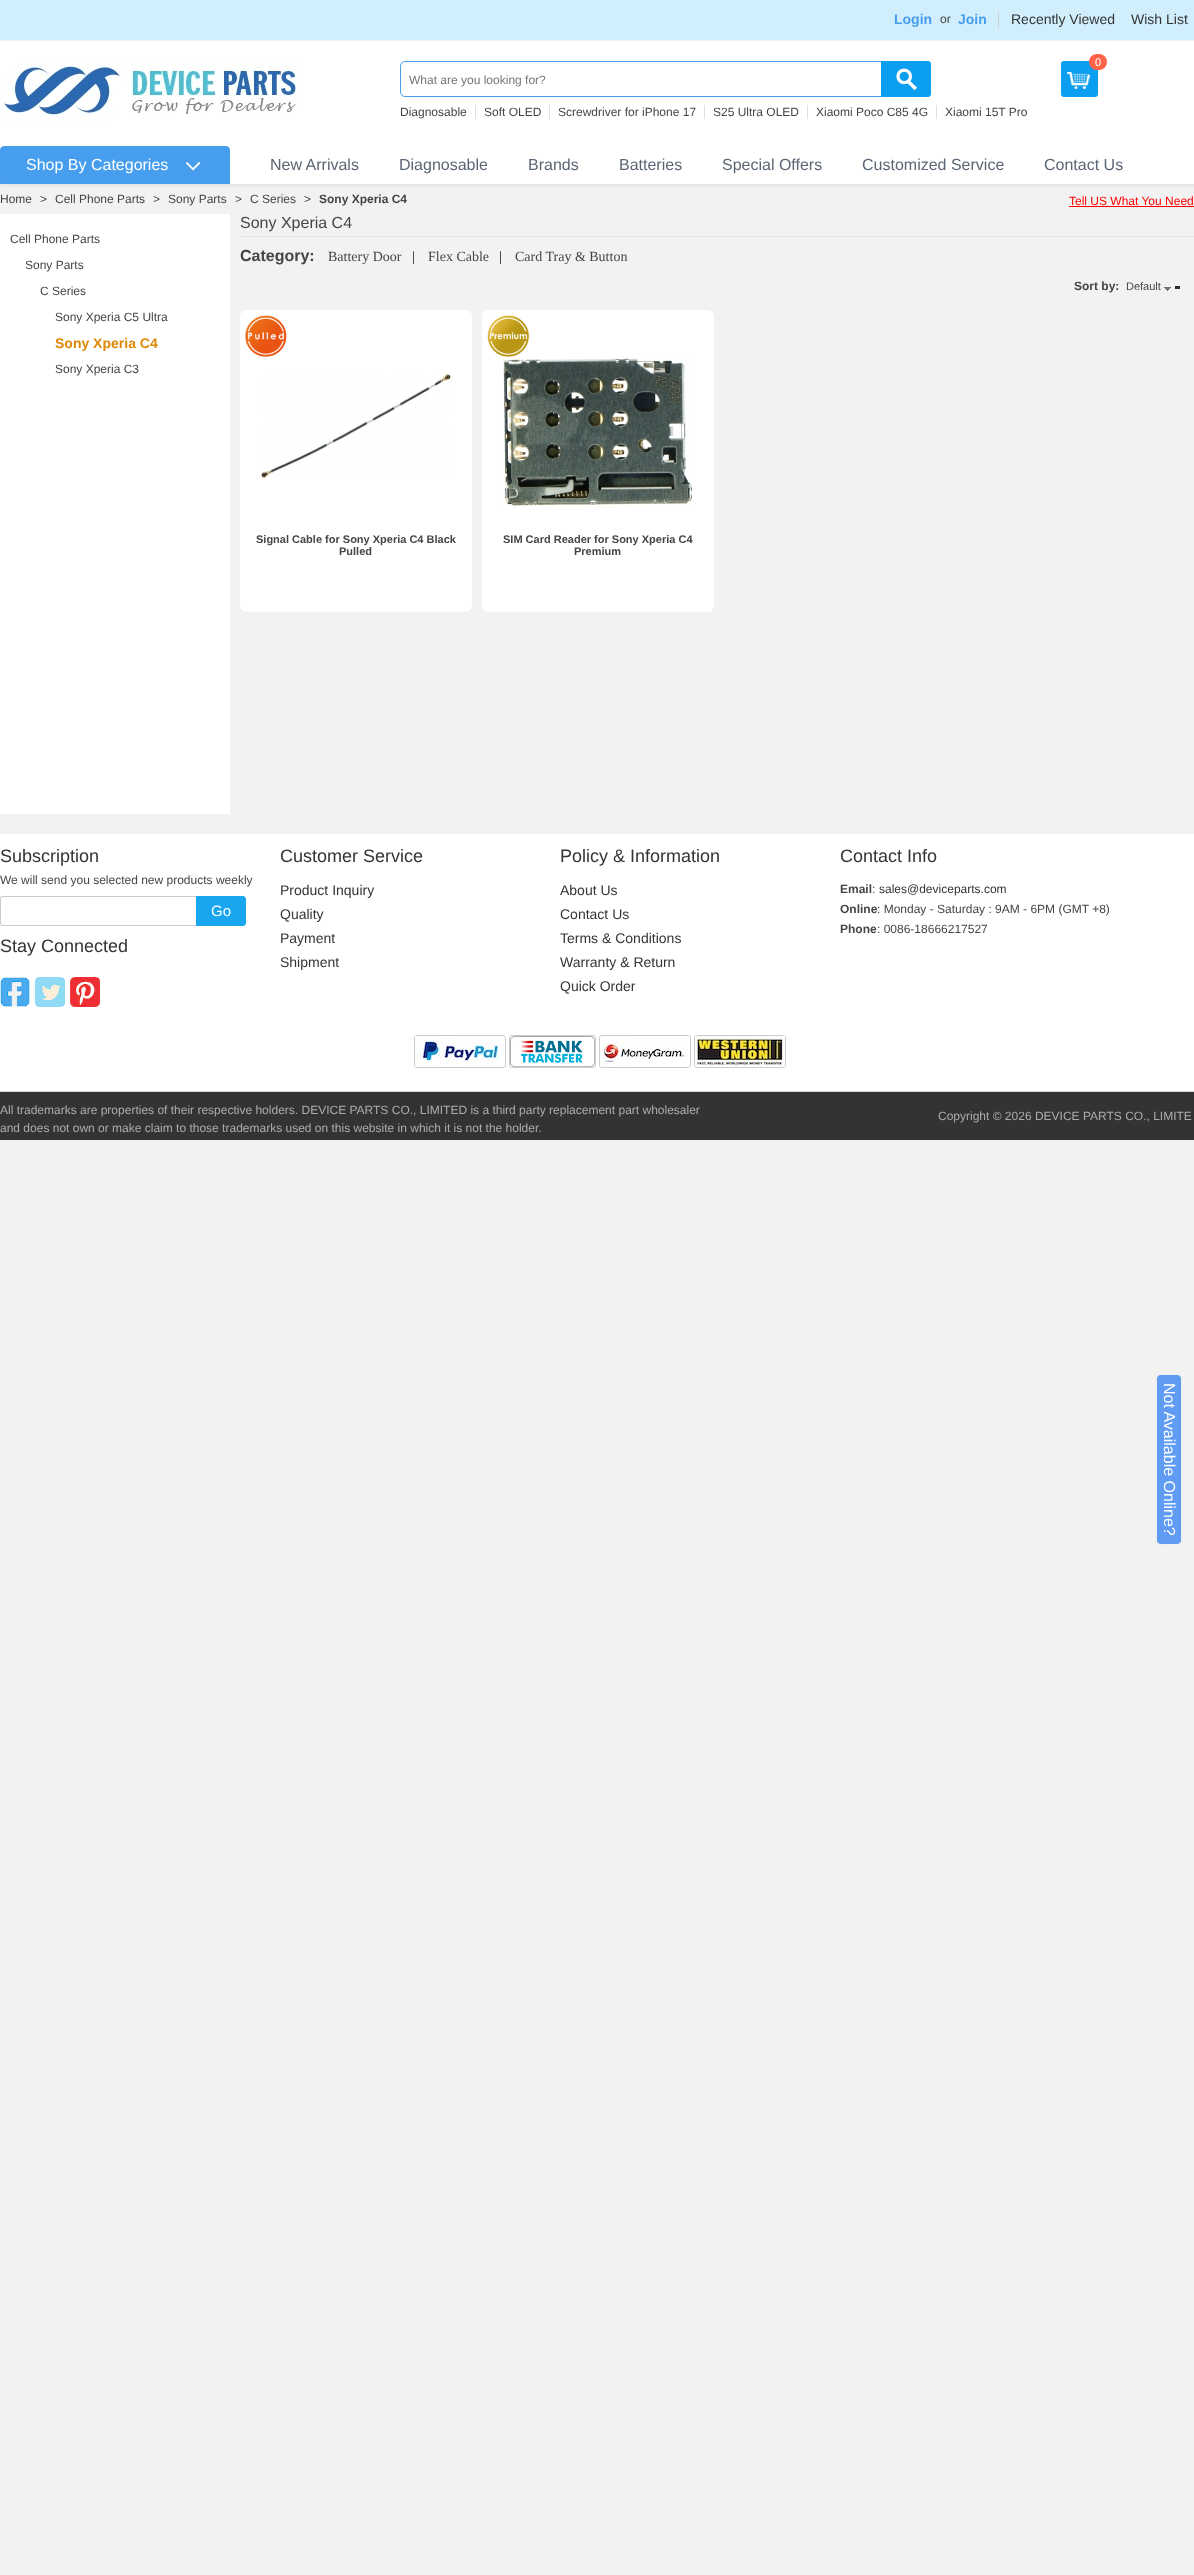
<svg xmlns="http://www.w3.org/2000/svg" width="1194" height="2575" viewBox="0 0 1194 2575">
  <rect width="100%" height="100%" fill="rgb(242,242,242)"/>
  <rect x="0" y="1" width="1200" height="184" fill="rgba(0,0,0,0.08)" filter="blur(2px)"/>
  <rect x="0" y="41" width="1194" height="143" fill="rgb(255,255,255)"/>
  <rect x="0" y="0" width="1194" height="40" fill="rgb(209,238,252)"/>
  <rect x="0" y="40" width="1194" height="1" fill="rgb(242,242,242)"/>
  <text x="894" y="24" font-family="Liberation Sans" font-size="14" font-weight="bold" fill="rgb(71,158,238)">Login</text>
  <text x="940" y="23" font-family="Liberation Sans" font-size="12" fill="rgb(69,69,69)">or</text>
  <text x="958" y="24" font-family="Liberation Sans" font-size="14" font-weight="bold" fill="rgb(71,158,238)">Join</text>
  <rect x="998" y="12" width="1" height="16" fill="rgb(204,204,204)"/>
  <g font-family="Liberation Sans" font-size="14" fill="rgb(52,52,52)">
    <text x="1011" y="24">Recently Viewed</text>
    <text x="1131" y="24">Wish List</text>
  </g>
  <image x="0" y="61" width="298" height="60" href="pic1.png"/>
  <rect x="1061" y="61" width="37" height="36" rx="3" fill="rgb(12,158,239)"/>
  <image x="1067" y="72" width="23" height="17" href="pic2.png"/>
  <rect x="1089" y="54" width="18" height="16" rx="8" fill="rgb(255,99,73)"/>
  <text x="1095" y="66" font-family="Liberation Sans" font-size="11" fill="rgb(255,255,255)">0</text>
  <rect x="400.5" y="61.5" width="484" height="35" rx="4.5" fill="none" stroke="rgb(72,158,238)"/>
  <text x="409" y="84" font-family="Liberation Sans" font-size="12" fill="rgb(117,117,117)">What are you looking for?</text>
  <image x="881" y="61" width="50" height="36" href="pic3.png"/>
  <text x="400" y="116" font-family="Liberation Sans" font-size="12" fill="rgb(69,69,69)">Diagnosable</text>
  <rect x="475" y="105" width="1" height="14" fill="rgb(224,224,224)"/>
  <text x="484" y="116" font-family="Liberation Sans" font-size="12" fill="rgb(69,69,69)">Soft OLED</text>
  <rect x="549" y="105" width="1" height="14" fill="rgb(224,224,224)"/>
  <text x="558" y="116" font-family="Liberation Sans" font-size="12" fill="rgb(69,69,69)">Screwdriver for iPhone 17</text>
  <rect x="704" y="105" width="1" height="14" fill="rgb(224,224,224)"/>
  <text x="713" y="116" font-family="Liberation Sans" font-size="12" fill="rgb(69,69,69)">S25 Ultra OLED</text>
  <rect x="807" y="105" width="1" height="14" fill="rgb(224,224,224)"/>
  <text x="816" y="116" font-family="Liberation Sans" font-size="12" fill="rgb(69,69,69)">Xiaomi Poco C85 4G</text>
  <rect x="936" y="105" width="1" height="14" fill="rgb(224,224,224)"/>
  <text x="945" y="116" font-family="Liberation Sans" font-size="12" fill="rgb(69,69,69)">Xiaomi 15T Pro</text>
  <path d="M4 146.5H226C228 146.5 229.5 148 229.5 150V183.5H.5V150C.5 148 2 146.5 4 146.5Z" fill="rgb(71,158,238)" stroke="rgb(71,158,238)"/>
  <text x="26" y="170" font-family="Liberation Sans" font-size="16" fill="rgb(255,255,255)">Shop By Categories</text>
  <image x="185" y="161" width="16" height="10" href="pic4.png"/>
  <g font-family="Liberation Sans" font-size="16" fill="rgb(91,102,117)">
    <text x="270" y="170">New Arrivals</text>
    <text x="399" y="170">Diagnosable</text>
    <text x="528" y="170">Brands</text>
    <text x="619" y="170">Batteries</text>
    <text x="722" y="170">Special Offers</text>
    <text x="862" y="170">Customized Service</text>
    <text x="1044" y="170">Contact Us</text>
  </g>
  <g font-family="Liberation Sans" font-size="12" fill="rgb(69,69,69)">
    <text x="0" y="203">Home</text>
    <text x="40" y="203">&gt;</text>
    <text x="55" y="203">Cell Phone Parts</text>
    <text x="153" y="203">&gt;</text>
    <text x="168" y="203">Sony Parts</text>
    <text x="235" y="203">&gt;</text>
    <text x="250" y="203">C Series</text>
    <text x="304" y="203">&gt;</text>
  </g>
  <text x="319" y="203" font-family="Liberation Sans" font-size="12" font-weight="bold" fill="rgb(69,69,69)">Sony Xperia C4</text>
  <text x="1069" y="205" font-family="Liberation Sans" font-size="12" fill="rgb(255,0,0)">Tell US What You Need</text>
  <rect x="1069" y="206" width="125" height="1" fill="rgb(255,0,0)"/>
  <rect x="240" y="236" width="954" height="1" fill="rgb(229,229,229)"/>
  <text x="240" y="228" font-family="Liberation Sans" font-size="16" fill="rgb(69,69,69)">Sony Xperia C4</text>
  <rect x="0" y="214" width="230" height="600" fill="rgb(255,255,255)"/>
  <g font-family="Liberation Sans" font-size="12" fill="rgb(69,69,69)">
    <text x="10" y="243">Cell Phone Parts</text>
    <text x="25" y="269">Sony Parts</text>
    <text x="40" y="295">C Series</text>
    <text x="55" y="321">Sony Xperia C5 Ultra</text>
  </g>
  <text x="55" y="348" font-family="Liberation Sans" font-size="14" font-weight="bold" fill="rgb(222,137,7)">Sony Xperia C4</text>
  <text x="55" y="373" font-family="Liberation Sans" font-size="12" fill="rgb(69,69,69)">Sony Xperia C3</text>
  <text x="240" y="261" font-family="Liberation Sans" font-size="16" font-weight="bold" fill="rgb(69,69,69)">Category:</text>
  <text x="328" y="261" font-family="Liberation Serif" font-size="14" fill="rgb(69,69,69)">Battery Door</text>
  <text x="412" y="261" font-family="Liberation Serif" font-size="14" fill="rgb(0,0,0)">|</text>
  <text x="428" y="261" font-family="Liberation Serif" font-size="14" fill="rgb(69,69,69)">Flex Cable</text>
  <text x="499" y="261" font-family="Liberation Serif" font-size="14" fill="rgb(0,0,0)">|</text>
  <text x="515" y="261" font-family="Liberation Serif" font-size="14" fill="rgb(69,69,69)">Card Tray &amp; Button</text>
  <text x="1074" y="290" font-family="Liberation Sans" font-size="12" font-weight="bold" fill="rgb(69,69,69)">Sort by:</text>
  <text x="1126" y="290" font-family="Liberation Sans" font-size="11" fill="rgb(69,69,69)">Default</text>
  <rect x="1175" y="286" width="5" height="3" fill="rgb(43,43,43)"/>
  <image x="1164" y="287" width="7" height="4" href="pic5.png"/>
  <rect x="240.5" y="310.5" width="231" height="301" rx="5.5" fill="rgb(255,255,255)" stroke="rgb(255,255,255)"/>
  <image x="245" y="315" width="42" height="42" href="pic6.png"/>
  <image x="260" y="373" width="191" height="106" href="pic7.png"/>
  <g font-family="Liberation Sans" font-size="11" font-weight="bold" fill="rgb(69,69,69)">
    <text x="256" y="543">Signal Cable for Sony Xperia C4 Black</text>
    <text x="339" y="555">Pulled</text>
  </g>
  <rect x="482.5" y="310.5" width="231" height="301" rx="5.5" fill="rgb(255,255,255)" stroke="rgb(255,255,255)"/>
  <image x="487" y="315" width="42" height="42" href="pic8.png"/>
  <image x="502" y="358" width="191" height="150" href="pic9.png"/>
  <g font-family="Liberation Sans" font-size="11" font-weight="bold" fill="rgb(69,69,69)">
    <text x="503" y="543">SIM Card Reader for Sony Xperia C4</text>
    <text x="574" y="555">Premium</text>
  </g>
  <rect x="0" y="834" width="1194" height="257" fill="rgb(255,255,255)"/>
  <text x="0" y="862" font-family="Liberation Sans" font-size="18" fill="rgb(52,52,52)">Subscription</text>
  <text x="0" y="884" font-family="Liberation Sans" font-size="12" fill="rgb(69,69,69)">We will send you selected new products weekly</text>
  <path d="M3 896H196V926H3C1 926 0 925 0 923V899C0 897 1 896 3 896ZM3 897H196V925H3C2 925 1 924 1 923V899C1 898 2 897 3 897Z" fill="rgb(204,204,204)" fill-rule="evenodd"/>
  <path d="M196.5 896.5H243C244.5 896.5 245.5 897.5 245.5 899V923C245.5 924.5 244.5 925.5 243 925.5H196.5Z" fill="rgb(24,166,239)" stroke="rgb(24,166,239)"/>
  <text x="211" y="916" font-family="Liberation Sans" font-size="15" fill="rgb(255,255,255)">Go</text>
  <text x="0" y="952" font-family="Liberation Sans" font-size="18" fill="rgb(52,52,52)">Stay Connected</text>
  <image x="0" y="977" width="30" height="30" href="pic10.png"/>
  <image x="35" y="977" width="30" height="30" href="pic11.png"/>
  <image x="70" y="977" width="30" height="30" href="pic12.png"/>
  <text x="280" y="862" font-family="Liberation Sans" font-size="18" fill="rgb(52,52,52)">Customer Service</text>
  <g font-family="Liberation Sans" font-size="14" fill="rgb(52,52,52)">
    <text>
      <tspan x="280" y="895">Product Inquiry</tspan>
      <tspan x="280" y="919">Quality</tspan>
      <tspan x="280" y="943">Payment</tspan>
      <tspan x="280" y="967">Shipment</tspan>
    </text>
  </g>
  <text x="560" y="862" font-family="Liberation Sans" font-size="18" fill="rgb(52,52,52)">Policy &amp; Information</text>
  <g font-family="Liberation Sans" font-size="14" fill="rgb(52,52,52)">
    <text>
      <tspan x="560" y="895">About Us</tspan>
      <tspan x="560" y="919">Contact Us</tspan>
      <tspan x="560" y="943">Terms &amp; Conditions</tspan>
      <tspan x="560" y="967">Warranty &amp; Return</tspan>
      <tspan x="560" y="991">Quick Order</tspan>
    </text>
  </g>
  <text x="840" y="862" font-family="Liberation Sans" font-size="18" fill="rgb(52,52,52)">Contact Info</text>
  <text x="840" y="893" font-family="Liberation Sans" font-size="12" font-weight="bold" fill="rgb(69,69,69)">Email</text>
  <text x="872" y="893" font-family="Liberation Sans" font-size="12" fill="rgb(69,69,69)">:</text>
  <text x="879" y="893" font-family="Liberation Sans" font-size="12" fill="rgb(52,52,52)">sales@deviceparts.com</text>
  <text x="840" y="913" font-family="Liberation Sans" font-size="12" font-weight="bold" fill="rgb(69,69,69)">Online</text>
  <text x="877" y="913" font-family="Liberation Sans" font-size="12" fill="rgb(69,69,69)">: Monday - Saturday : 9AM - 6PM (GMT +8)</text>
  <text x="840" y="933" font-family="Liberation Sans" font-size="12" font-weight="bold" fill="rgb(69,69,69)">Phone</text>
  <text x="877" y="933" font-family="Liberation Sans" font-size="12" fill="rgb(69,69,69)">: 0086-18666217527</text>
  <rect x="414.5" y="1035.5" width="91" height="32" rx="2.5" fill="none" stroke="rgb(204,204,204)"/>
  <image x="415" y="1036" width="90" height="31" href="pic13.png"/>
  <rect x="509.5" y="1035.5" width="86" height="32" rx="2.5" fill="none" stroke="rgb(204,204,204)"/>
  <image x="510" y="1036" width="85" height="31" href="pic14.png"/>
  <rect x="599.5" y="1035.5" width="91" height="32" rx="2.5" fill="none" stroke="rgb(204,204,204)"/>
  <image x="600" y="1036" width="90" height="31" href="pic15.png"/>
  <rect x="694.5" y="1035.5" width="91" height="32" rx="2.5" fill="none" stroke="rgb(204,204,204)"/>
  <image x="695" y="1036" width="90" height="31" href="pic16.png"/>
  <rect x="0" y="1092" width="1194" height="48" fill="rgb(51,51,51)"/>
  <rect x="0" y="1091" width="1194" height="1" fill="rgb(212,212,212)"/>
  <g font-family="Liberation Sans" font-size="12" fill="rgb(173,173,173)">
    <text>
      <tspan x="0" y="1114">All trademarks are properties of their respective holders. DEVICE PARTS CO., LIMITED is a third party replacement part wholesaler</tspan>
      <tspan x="0" y="1132">and does not own or make claim to those trademarks used on this website in which it is not the holder.</tspan>
    </text>
    <text x="938" y="1120">Copyright © 2026 DEVICE PARTS CO., LIMITE</text>
  </g>
  <rect x="1156.5" y="1374.5" width="25" height="170" rx="4.5" fill="rgb(96,155,244)" stroke="rgb(238,238,238)"/>
  <text x="1164" y="1383" transform="rotate(90 1164 1383)" font-family="Liberation Sans" font-size="16" fill="rgb(255,255,255)">Not Available Online?</text>
</svg>
